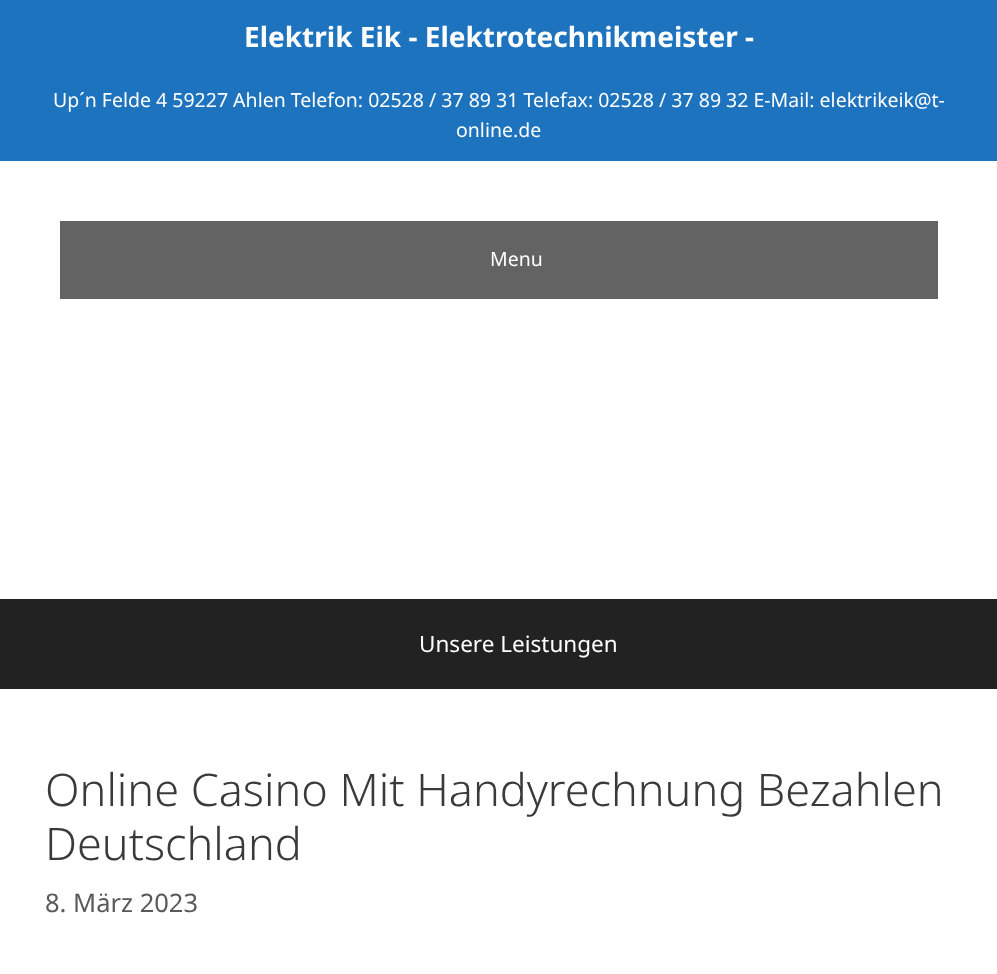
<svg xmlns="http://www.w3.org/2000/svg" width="997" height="974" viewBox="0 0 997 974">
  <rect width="100%" height="100%" fill="rgb(255,255,255)"/>
  <rect x="0" y="0" width="997" height="161" fill="rgb(30,115,190)"/>
  <text x="244" y="47" font-family="Noto Sans" font-size="28" font-weight="bold" fill="rgb(255,255,255)">Elektrik Eik - Elektrotechnikmeister -</text>
  <g font-family="Noto Sans" font-size="19.5" fill="rgb(255,255,255)">
    <text x="53" y="107">Up´n Felde 4 59227 Ahlen Telefon: 02528 / 37 89 31 Telefax: 02528 / 37 89 32 E-Mail: elektrikeik@t-</text>
    <text x="456" y="137">online.de</text>
  </g>
  <rect x="60" y="221" width="878" height="78" fill="rgb(99,99,99)"/>
  <text x="490" y="266" font-family="Noto Sans" font-size="19.5" fill="rgb(255,255,255)">Menu</text>
  <rect x="0" y="599" width="997" height="90" fill="rgb(34,34,34)"/>
  <text x="419" y="652" font-family="Noto Sans" font-size="22.5" fill="rgb(255,255,255)">Unsere Leistungen</text>
  <g font-family="Noto Sans" font-size="45" font-weight="300" fill="rgb(58,58,58)">
    <text>
      <tspan x="45" y="806">Online Casino Mit Handyrechnung Bezahlen</tspan>
      <tspan x="45" y="860">Deutschland</tspan>
    </text>
  </g>
  <text x="45" y="912" font-family="Noto Sans" font-size="25.5" fill="rgb(89,89,89)">8. März 2023</text>
</svg>
